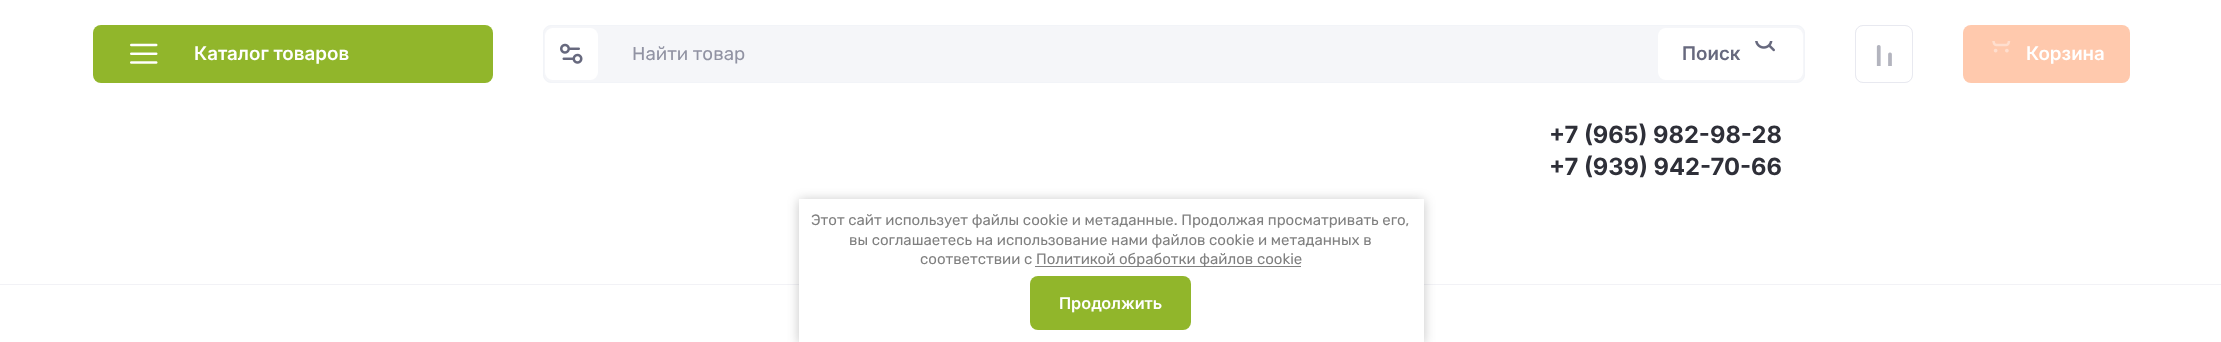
<svg xmlns="http://www.w3.org/2000/svg" width="2221" height="342" viewBox="0 0 2221 342">
  <rect width="100%" height="100%" fill="rgb(255,255,255)"/>
  <rect x="93" y="25" width="400" height="58" rx="8" fill="rgb(145,182,43)"/>
  <image x="130" y="43" width="28" height="21" href="pic1.png"/>
  <text x="194" y="60" font-family="Inter" font-size="18.75" font-weight="600" fill="rgb(255,255,255)">Каталог товаров</text>
  <rect x="543.5" y="25.5" width="1261" height="57" rx="7.5" fill="rgb(245,246,249)" stroke="rgb(242,244,248)"/>
  <rect x="545" y="28" width="53" height="52" rx="8" fill="rgb(255,255,255)"/>
  <image x="560" y="43" width="23" height="21" href="pic2.png"/>
  <text x="632" y="60" font-family="Rubik" font-size="18.75" fill="rgb(145,147,163)">Найти товар</text>
  <rect x="1658" y="28" width="145" height="52" rx="8" fill="rgb(255,255,255)"/>
  <text x="1682" y="60" font-family="Inter" font-size="18.75" font-weight="600" fill="rgb(103,105,126)">Поиск</text>
  <image x="1755" y="41" width="20" height="11" href="pic3.png"/>
  <rect x="1855.5" y="25.5" width="57" height="57" rx="7.5" fill="none" stroke="rgb(242,242,246)"/>
  <rect x="1855.5" y="25.5" width="57" height="57" rx="7.5" fill="none" stroke="rgba(210,211,224,0.3)"/>
  <image x="1876" y="45" width="16" height="21" href="pic4.png"/>
  <rect x="1963" y="25" width="167" height="58" rx="8" fill="rgb(255,201,173)"/>
  <image x="1992" y="41" width="19" height="12" href="pic5.png"/>
  <text x="2026" y="60" font-family="Inter" font-size="18.75" font-weight="600" fill="rgb(255,255,255)">Корзина</text>
  <g font-family="Inter" font-size="23.75" font-weight="bold" fill="rgb(46,47,56)">
    <text>
      <tspan x="1549" y="143">+7 (965) 982-98-28</tspan>
      <tspan x="1549" y="175">+7 (939) 942-70-66</tspan>
    </text>
  </g>
  <rect x="0" y="284" width="2221" height="1" fill="rgb(242,242,246)"/>
  <rect x="799" y="200" width="625" height="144" fill="rgba(0,0,0,0.23)" filter="blur(6px)"/>
  <rect x="799" y="199" width="625" height="143" fill="rgb(255,255,255)"/>
  <g font-family="Rubik" font-size="15" fill="rgb(128,128,128)">
    <text x="811" y="225">Этот сайт использует файлы cookie и метаданные. Продолжая просматривать его,</text>
    <text x="849" y="245">вы соглашаетесь на использование нами файлов cookie и метаданных в</text>
    <text x="920" y="264">соответствии с</text>
  </g>
  <rect x="1035" y="266" width="266" height="1" fill="rgb(128,128,128)"/>
  <text x="1036" y="264" font-family="Rubik" font-size="15" fill="rgb(128,128,128)">Политикой обработки файлов cookie</text>
  <rect x="1030" y="276" width="161" height="54" rx="8" fill="rgb(145,182,43)"/>
  <text x="1059" y="309" font-family="Inter" font-size="16.25" font-weight="600" fill="rgb(255,255,255)">Продолжить</text>
</svg>
